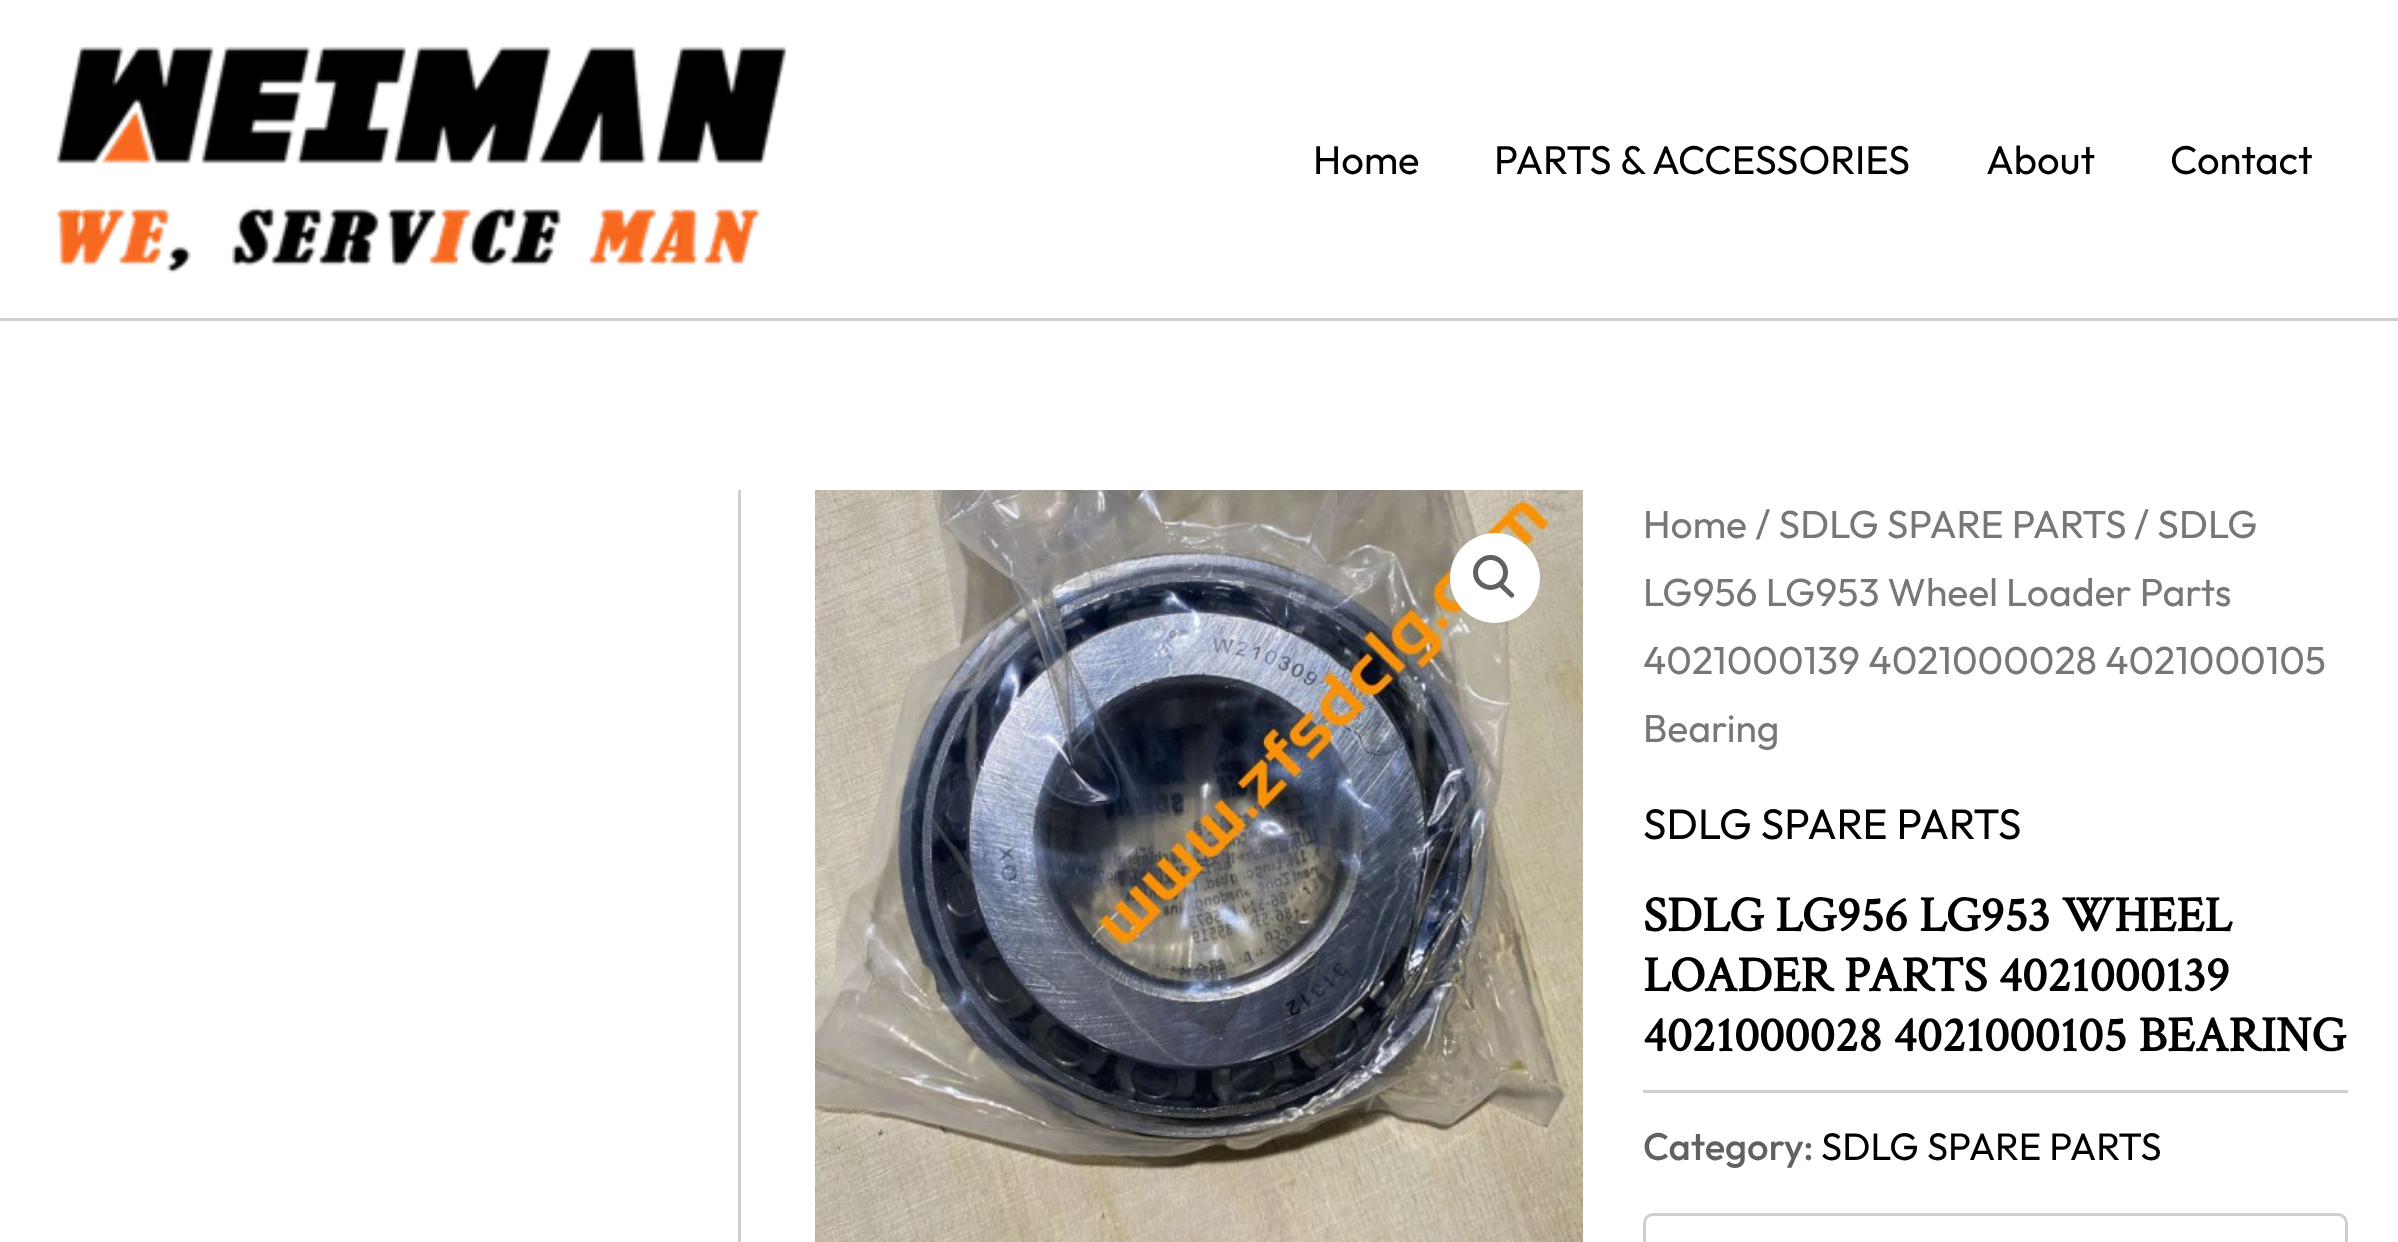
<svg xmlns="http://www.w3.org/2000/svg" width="2398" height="1242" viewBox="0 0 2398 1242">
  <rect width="100%" height="100%" fill="rgb(255,255,255)"/>
  <rect x="0" y="318" width="2398" height="3" fill="rgb(207,207,207)"/>
  <image x="56" y="46" width="732" height="227" href="pic1.png"/>
  <g font-family="Outfit" font-size="40" fill="rgb(0,0,0)">
    <text x="1313" y="174">Home</text>
    <text x="1494" y="174">PARTS &amp; ACCESSORIES</text>
    <text x="1986" y="174">About</text>
    <text x="2170" y="174">Contact</text>
  </g>
  <rect x="738" y="490" width="3" height="752" fill="rgb(207,207,207)"/>
  <image x="815" y="490" width="768" height="752" href="pic2.png"/>
  <circle cx="1495" cy="578" r="45" fill="rgb(255,255,255)"/>
  <circle cx="1490.5" cy="572.5" r="15" fill="none" stroke="rgb(97,97,97)" stroke-width="5"/>
  <path d="M1499 583C1500 582 1501.5 582 1502.5 583L1513.5 593.5C1514.5 594.5 1514.5 596 1513.5 597C1512.5 598 1511 598 1510 597L1499 586.5C1498 585.5 1498 584 1499 583Z" fill="rgb(97,97,97)"/>
  <g font-family="Outfit" font-size="39.1" fill="rgb(119,119,119)">
    <text x="1643" y="538">Home / SDLG SPARE PARTS</text>
    <text x="2134" y="538">/ SDLG</text>
    <text>
      <tspan x="1643" y="606">LG956 LG953 Wheel Loader Parts</tspan>
      <tspan x="1643" y="674">4021000139 4021000028 4021000105</tspan>
      <tspan x="1643" y="742">Bearing</tspan>
    </text>
  </g>
  <text x="1643" y="839" font-family="Outfit" font-size="42.5" fill="rgb(0,0,0)">SDLG SPARE PARTS</text>
  <g font-family="Crimson Text" font-size="50" font-weight="bold" fill="rgb(0,0,0)">
    <text>
      <tspan x="1643" y="931">SDLG LG956 LG953 WHEEL</tspan>
      <tspan x="1643" y="991">LOADER PARTS 4021000139</tspan>
      <tspan x="1643" y="1051">4021000028 4021000105 BEARING</tspan>
    </text>
  </g>
  <rect x="1643" y="1090" width="705" height="3" fill="rgb(207,207,207)"/>
  <text x="1643" y="1160" font-family="Outfit" font-size="38.25" font-weight="500" fill="rgb(97,97,97)">Category:</text>
  <text x="1821" y="1160" font-family="Outfit" font-size="38.25" fill="rgb(0,0,0)">SDLG SPARE PARTS</text>
  <rect x="1644.5" y="1214.5" width="702" height="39" rx="8.5" fill="none" stroke="rgb(207,207,207)" stroke-width="3"/>
</svg>
